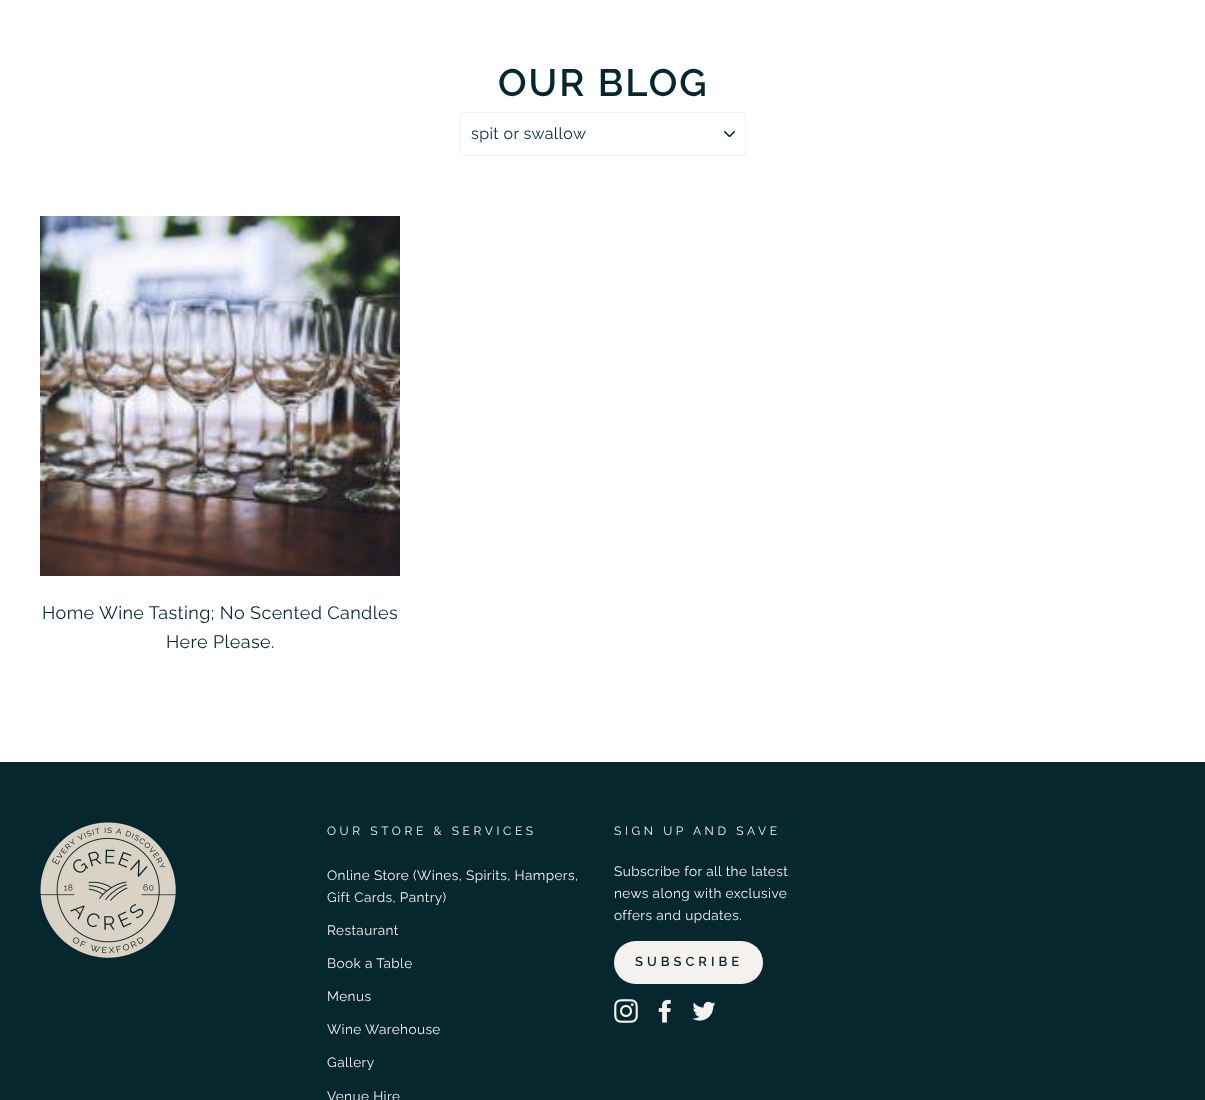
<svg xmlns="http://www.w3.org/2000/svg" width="1205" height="1100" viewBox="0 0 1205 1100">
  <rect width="100%" height="100%" fill="rgb(255,255,255)"/>
  <text x="498" y="96" font-family="Raleway" font-size="38" font-weight="600" letter-spacing="2" fill="rgb(6,39,46)">OUR BLOG</text>
  <image x="724" y="131" width="11" height="6" href="pic1.png"/>
  <rect x="460.5" y="112.5" width="285" height="43" fill="none" stroke="rgb(245,241,238)"/>
  <text x="471" y="139" font-family="Raleway" font-size="16" letter-spacing="0.4" fill="rgb(6,39,46)">spit or swallow</text>
  <image x="40" y="216" width="360" height="360" href="pic2.png"/>
  <g font-family="Raleway" font-size="18" letter-spacing="0.4" fill="rgb(6,39,46)">
    <text x="42" y="619">Home Wine Tasting; No Scented Candles</text>
    <text x="166" y="648">Here Please.</text>
  </g>
  <rect x="0" y="762" width="1205" height="338" fill="rgb(6,39,46)"/>
  <image x="40" y="822" width="136" height="136" href="pic3.png"/>
  <text x="327" y="835" font-family="Raleway" font-size="12" letter-spacing="3.6" fill="rgb(245,241,238)">OUR STORE &amp; SERVICES</text>
  <g font-family="Raleway" font-size="13.6" letter-spacing="0.4" fill="rgb(245,241,238)">
    <text>
      <tspan x="327" y="880">Online Store (Wines, Spirits, Hampers,</tspan>
      <tspan x="327" y="902">Gift Cards, Pantry)</tspan>
    </text>
    <text x="327" y="935">Restaurant</text>
    <text x="327" y="968">Book a Table</text>
    <text x="327" y="1001">Menus</text>
    <text x="327" y="1034">Wine Warehouse</text>
    <text x="327" y="1067">Gallery</text>
    <text x="327" y="1101">Venue Hire</text>
  </g>
  <text x="614" y="835" font-family="Raleway" font-size="12" letter-spacing="3.6" fill="rgb(245,241,238)">SIGN UP AND SAVE</text>
  <g font-family="Raleway" font-size="13.6" letter-spacing="0.4" fill="rgb(245,241,238)">
    <text>
      <tspan x="614" y="876">Subscribe for all the latest</tspan>
      <tspan x="614" y="898">news along with exclusive</tspan>
      <tspan x="614" y="920">offers and updates.</tspan>
    </text>
  </g>
  <rect x="614" y="941" width="149" height="43" rx="21.5" fill="rgb(245,241,238)"/>
  <text x="635" y="966" font-family="Raleway" font-size="13" font-weight="600" letter-spacing="4" fill="rgb(6,39,46)">SUBSCRIBE</text>
  <image x="614" y="999" width="24" height="24" href="pic4.png"/>
  <image x="658" y="999" width="13" height="24" href="pic5.png"/>
  <image x="692" y="1001" width="24" height="20" href="pic6.png"/>
</svg>
